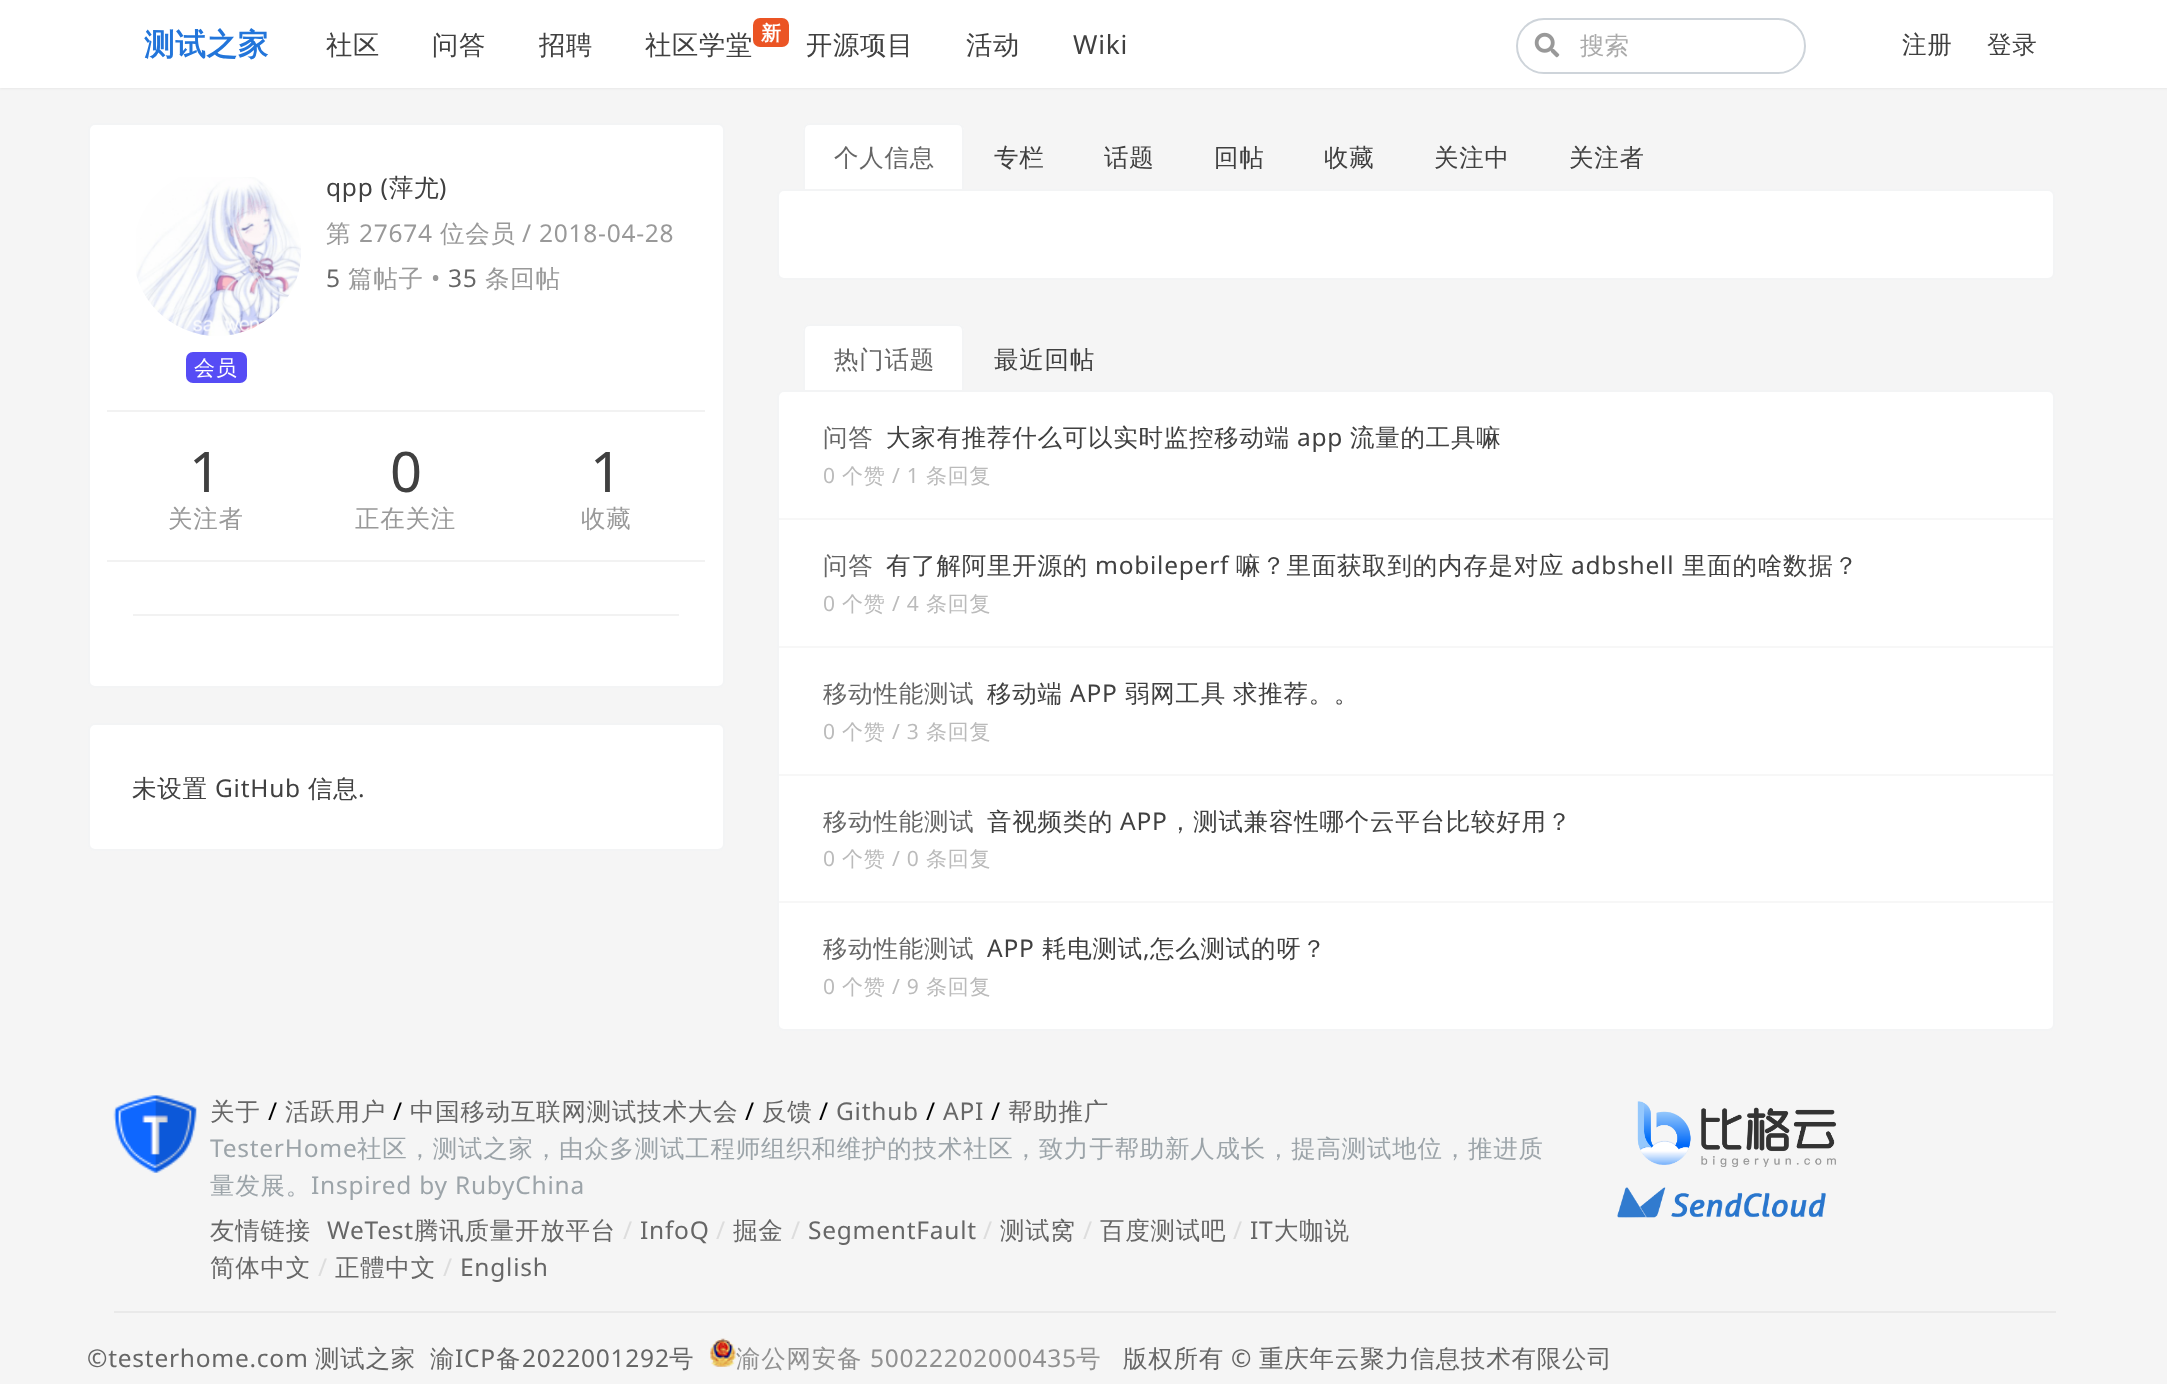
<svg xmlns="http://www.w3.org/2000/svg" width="2167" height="1384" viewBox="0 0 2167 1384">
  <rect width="100%" height="100%" fill="rgb(245,245,245)"/>
  <rect x="0" y="2" width="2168" height="87" fill="rgba(0,0,0,0.05)" filter="blur(1px)"/>
  <rect x="0" y="0" width="2167" height="88" fill="rgb(255,255,255)"/>
  <text x="144" y="55" font-family="WenQuanYi Zen Hei" font-size="30.5" font-weight="bold" letter-spacing="0.75" fill="rgb(34,117,218)">测试之家</text>
  <g font-family="WenQuanYi Zen Hei" font-size="26.25" font-weight="500" letter-spacing="0.75" fill="rgb(64,64,64)">
    <text x="326" y="54">社区</text>
    <text x="432" y="54">问答</text>
    <text x="539" y="54">招聘</text>
    <text x="645" y="54">社区学堂</text>
  </g>
  <rect x="753" y="18" width="36" height="29" rx="7" fill="rgb(235,84,36)"/>
  <text x="761" y="40" font-family="WenQuanYi Zen Hei" font-size="20" font-weight="bold" letter-spacing="0.75" fill="rgb(255,255,255)">新</text>
  <g font-family="WenQuanYi Zen Hei" font-size="26.25" font-weight="500" letter-spacing="0.75" fill="rgb(64,64,64)">
    <text x="806" y="54">开源项目</text>
    <text x="966" y="54">活动</text>
  </g>
  <text x="1073" y="54" font-family="Noto Sans" font-size="26.25" letter-spacing="0.75" fill="rgb(64,64,64)">Wiki</text>
  <rect x="1517" y="19" width="288" height="54" rx="27" fill="none" stroke="rgb(206,212,218)" stroke-width="2"/>
  <image x="1534" y="32" width="26" height="26" href="pic1.png"/>
  <text x="1580" y="54" font-family="WenQuanYi Zen Hei" font-size="24.5" font-weight="500" fill="rgb(170,170,170)">搜索</text>
  <g font-family="WenQuanYi Zen Hei" font-size="24.5" font-weight="500" letter-spacing="0.75" fill="rgb(64,64,64)">
    <text x="1902" y="53">注册</text>
    <text x="1987" y="53">登录</text>
  </g>
  <rect x="88" y="123" width="637" height="565" rx="7" fill="rgb(255,255,255)"/>
  <rect x="89" y="124" width="635" height="563" rx="6" fill="none" stroke="rgba(120,130,140,0.09)" stroke-width="2"/>
  <text x="326" y="196" font-family="Noto Sans" font-size="24.5" letter-spacing="0.75" fill="rgb(64,64,64)">qpp (</text>
  <text x="389" y="196" font-family="WenQuanYi Zen Hei" font-size="24.5" font-weight="500" letter-spacing="0.75" fill="rgb(64,64,64)">萍尤</text>
  <text x="439" y="196" font-family="Noto Sans" font-size="24.5" letter-spacing="0.75" fill="rgb(64,64,64)">)</text>
  <text x="326" y="242" font-family="WenQuanYi Zen Hei" font-size="24.5" font-weight="500" letter-spacing="0.75" fill="rgb(153,153,153)">第</text>
  <text x="359" y="242" font-family="Noto Sans" font-size="24.5" letter-spacing="0.75" fill="rgb(153,153,153)">27674</text>
  <text x="440" y="242" font-family="WenQuanYi Zen Hei" font-size="24.5" font-weight="500" letter-spacing="0.75" fill="rgb(153,153,153)">位会员</text>
  <text x="522" y="242" font-family="Noto Sans" font-size="24.5" letter-spacing="0.75" fill="rgb(153,153,153)">/ 2018-04-28</text>
  <text x="326" y="287" font-family="Noto Sans" font-size="24.5" letter-spacing="0.75" fill="rgb(102,102,102)">5</text>
  <text x="348" y="287" font-family="WenQuanYi Zen Hei" font-size="24.5" font-weight="500" letter-spacing="0.75" fill="rgb(153,153,153)">篇帖子</text>
  <text x="431" y="287" font-family="Noto Sans" font-size="24.5" letter-spacing="0.75" fill="rgb(153,153,153)">•</text>
  <text x="448" y="287" font-family="Noto Sans" font-size="24.5" letter-spacing="0.75" fill="rgb(102,102,102)">35</text>
  <text x="485" y="287" font-family="WenQuanYi Zen Hei" font-size="24.5" font-weight="500" letter-spacing="0.75" fill="rgb(153,153,153)">条回帖</text>
  <image x="136" y="177" width="165" height="159" href="pic2.png"/>
  <rect x="186" y="352" width="61" height="31" rx="7" fill="rgb(86,76,245)"/>
  <text x="194" y="375" font-family="WenQuanYi Zen Hei" font-size="21" font-weight="500" letter-spacing="0.75" fill="rgb(255,255,255)">会员</text>
  <rect x="107" y="410" width="598" height="2" fill="rgb(242,242,242)"/>
  <text x="189" y="492" font-family="Noto Sans" font-size="56" letter-spacing="0.75" fill="rgb(64,64,64)">1</text>
  <text x="168" y="527" font-family="WenQuanYi Zen Hei" font-size="24.5" font-weight="500" letter-spacing="0.75" fill="rgb(153,153,153)">关注者</text>
  <text x="390" y="492" font-family="Noto Sans" font-size="56" letter-spacing="0.75" fill="rgb(64,64,64)">0</text>
  <text x="355" y="527" font-family="WenQuanYi Zen Hei" font-size="24.5" font-weight="500" letter-spacing="0.75" fill="rgb(153,153,153)">正在关注</text>
  <text x="590" y="492" font-family="Noto Sans" font-size="56" letter-spacing="0.75" fill="rgb(64,64,64)">1</text>
  <text x="581" y="527" font-family="WenQuanYi Zen Hei" font-size="24.5" font-weight="500" letter-spacing="0.75" fill="rgb(153,153,153)">收藏</text>
  <rect x="107" y="560" width="598" height="2" fill="rgb(242,242,242)"/>
  <rect x="133" y="614" width="546" height="2" fill="rgb(242,242,242)"/>
  <rect x="88" y="723" width="637" height="128" rx="7" fill="rgb(255,255,255)"/>
  <rect x="89" y="724" width="635" height="126" rx="6" fill="none" stroke="rgba(120,130,140,0.09)" stroke-width="2"/>
  <text x="132" y="797" font-family="WenQuanYi Zen Hei" font-size="24.5" font-weight="500" letter-spacing="0.75" fill="rgb(64,64,64)">未设置</text>
  <text x="215" y="797" font-family="Noto Sans" font-size="24.5" letter-spacing="0.75" fill="rgb(64,64,64)">GitHub</text>
  <text x="308" y="797" font-family="WenQuanYi Zen Hei" font-size="24.5" font-weight="500" letter-spacing="0.75" fill="rgb(64,64,64)">信息</text>
  <text x="358" y="797" font-family="Noto Sans" font-size="24.5" letter-spacing="0.75" fill="rgb(64,64,64)">.</text>
  <path d="M810 123H957C961 123 964 126 964 130V191H803V130C803 126 806 123 810 123Z" fill="rgb(255,255,255)"/>
  <path d="M810 124H957C960.5 124 963 126.5 963 130V190H804V130C804 126.5 806.5 124 810 124Z" fill="none" stroke="rgba(120,130,140,0.09)" stroke-width="2"/>
  <text x="834" y="166" font-family="WenQuanYi Zen Hei" font-size="24.5" font-weight="500" letter-spacing="0.75" fill="rgb(102,102,102)">个人信息</text>
  <g font-family="WenQuanYi Zen Hei" font-size="24.5" font-weight="500" letter-spacing="0.75" fill="rgb(64,64,64)">
    <text x="994" y="166">专栏</text>
    <text x="1104" y="166">话题</text>
    <text x="1214" y="166">回帖</text>
    <text x="1324" y="166">收藏</text>
    <text x="1434" y="166">关注中</text>
    <text x="1569" y="166">关注者</text>
  </g>
  <rect x="777" y="189" width="1278" height="91" rx="7" fill="rgb(255,255,255)"/>
  <rect x="778" y="190" width="1276" height="89" rx="6" fill="none" stroke="rgba(120,130,140,0.09)" stroke-width="2"/>
  <path d="M810 324H957C961 324 964 327 964 331V392H803V331C803 327 806 324 810 324Z" fill="rgb(255,255,255)"/>
  <path d="M810 325H957C960.5 325 963 327.5 963 331V391H804V331C804 327.5 806.5 325 810 325Z" fill="none" stroke="rgba(120,130,140,0.09)" stroke-width="2"/>
  <text x="834" y="368" font-family="WenQuanYi Zen Hei" font-size="24.5" font-weight="500" letter-spacing="0.75" fill="rgb(102,102,102)">热门话题</text>
  <text x="994" y="368" font-family="WenQuanYi Zen Hei" font-size="24.5" font-weight="500" letter-spacing="0.75" fill="rgb(64,64,64)">最近回帖</text>
  <rect x="777" y="390" width="1278" height="641" rx="7" fill="rgb(255,255,255)"/>
  <rect x="778" y="391" width="1276" height="639" rx="6" fill="none" stroke="rgba(120,130,140,0.09)" stroke-width="2"/>
  <rect x="779" y="518" width="1274" height="2" fill="rgb(247,247,247)"/>
  <text x="823" y="446" font-family="WenQuanYi Zen Hei" font-size="24.5" font-weight="500" letter-spacing="0.75" fill="rgb(102,102,102)">问答</text>
  <text x="886" y="446" font-family="WenQuanYi Zen Hei" font-size="24.5" font-weight="500" letter-spacing="0.75" fill="rgb(64,64,64)">大家有推荐什么可以实时监控移动端</text>
  <text x="1297" y="446" font-family="Noto Sans" font-size="24.5" letter-spacing="0.75" fill="rgb(64,64,64)">app</text>
  <text x="1350" y="446" font-family="WenQuanYi Zen Hei" font-size="24.5" font-weight="500" letter-spacing="0.75" fill="rgb(64,64,64)">流量的工具嘛</text>
  <text x="823" y="483" font-family="Noto Sans" font-size="21" letter-spacing="0.75" fill="rgb(187,187,187)">0</text>
  <text x="842" y="483" font-family="WenQuanYi Zen Hei" font-size="21" font-weight="500" letter-spacing="0.75" fill="rgb(187,187,187)">个赞</text>
  <text x="892" y="483" font-family="Noto Sans" font-size="21" letter-spacing="0.75" fill="rgb(187,187,187)">/ 1</text>
  <text x="926" y="483" font-family="WenQuanYi Zen Hei" font-size="21" font-weight="500" letter-spacing="0.75" fill="rgb(187,187,187)">条回复</text>
  <rect x="779" y="646" width="1274" height="2" fill="rgb(247,247,247)"/>
  <text x="823" y="574" font-family="WenQuanYi Zen Hei" font-size="24.5" font-weight="500" letter-spacing="0.75" fill="rgb(102,102,102)">问答</text>
  <text x="886" y="574" font-family="WenQuanYi Zen Hei" font-size="24.5" font-weight="500" letter-spacing="0.75" fill="rgb(64,64,64)">有了解阿里开源的</text>
  <text x="1095" y="574" font-family="Noto Sans" font-size="24.5" letter-spacing="0.75" fill="rgb(64,64,64)">mobileperf</text>
  <text x="1236" y="574" font-family="WenQuanYi Zen Hei" font-size="24.5" font-weight="500" letter-spacing="0.75" fill="rgb(64,64,64)">嘛？里面获取到的内存是对应</text>
  <text x="1571" y="574" font-family="Noto Sans" font-size="24.5" letter-spacing="0.75" fill="rgb(64,64,64)">adbshell</text>
  <text x="1682" y="574" font-family="WenQuanYi Zen Hei" font-size="24.5" font-weight="500" letter-spacing="0.75" fill="rgb(64,64,64)">里面的啥数据？</text>
  <text x="823" y="611" font-family="Noto Sans" font-size="21" letter-spacing="0.75" fill="rgb(187,187,187)">0</text>
  <text x="842" y="611" font-family="WenQuanYi Zen Hei" font-size="21" font-weight="500" letter-spacing="0.75" fill="rgb(187,187,187)">个赞</text>
  <text x="892" y="611" font-family="Noto Sans" font-size="21" letter-spacing="0.75" fill="rgb(187,187,187)">/ 4</text>
  <text x="926" y="611" font-family="WenQuanYi Zen Hei" font-size="21" font-weight="500" letter-spacing="0.75" fill="rgb(187,187,187)">条回复</text>
  <rect x="779" y="774" width="1274" height="2" fill="rgb(247,247,247)"/>
  <text x="823" y="702" font-family="WenQuanYi Zen Hei" font-size="24.5" font-weight="500" letter-spacing="0.75" fill="rgb(102,102,102)">移动性能测试</text>
  <text x="987" y="702" font-family="WenQuanYi Zen Hei" font-size="24.5" font-weight="500" letter-spacing="0.75" fill="rgb(64,64,64)">移动端</text>
  <text x="1070" y="702" font-family="Noto Sans" font-size="24.5" letter-spacing="0.75" fill="rgb(64,64,64)">APP</text>
  <g font-family="WenQuanYi Zen Hei" font-size="24.5" font-weight="500" letter-spacing="0.75" fill="rgb(64,64,64)">
    <text x="1125" y="702">弱网工具</text>
    <text x="1233" y="702">求推荐。。</text>
  </g>
  <text x="823" y="739" font-family="Noto Sans" font-size="21" letter-spacing="0.75" fill="rgb(187,187,187)">0</text>
  <text x="842" y="739" font-family="WenQuanYi Zen Hei" font-size="21" font-weight="500" letter-spacing="0.75" fill="rgb(187,187,187)">个赞</text>
  <text x="892" y="739" font-family="Noto Sans" font-size="21" letter-spacing="0.75" fill="rgb(187,187,187)">/ 3</text>
  <text x="926" y="739" font-family="WenQuanYi Zen Hei" font-size="21" font-weight="500" letter-spacing="0.75" fill="rgb(187,187,187)">条回复</text>
  <rect x="779" y="901" width="1274" height="2" fill="rgb(247,247,247)"/>
  <text x="823" y="830" font-family="WenQuanYi Zen Hei" font-size="24.5" font-weight="500" letter-spacing="0.75" fill="rgb(102,102,102)">移动性能测试</text>
  <text x="987" y="830" font-family="WenQuanYi Zen Hei" font-size="24.5" font-weight="500" letter-spacing="0.75" fill="rgb(64,64,64)">音视频类的</text>
  <text x="1120" y="830" font-family="Noto Sans" font-size="24.5" letter-spacing="0.75" fill="rgb(64,64,64)">APP</text>
  <text x="1168" y="830" font-family="WenQuanYi Zen Hei" font-size="24.5" font-weight="500" letter-spacing="0.75" fill="rgb(64,64,64)">，测试兼容性哪个云平台比较好用？</text>
  <text x="823" y="866" font-family="Noto Sans" font-size="21" letter-spacing="0.75" fill="rgb(187,187,187)">0</text>
  <text x="842" y="866" font-family="WenQuanYi Zen Hei" font-size="21" font-weight="500" letter-spacing="0.75" fill="rgb(187,187,187)">个赞</text>
  <text x="892" y="866" font-family="Noto Sans" font-size="21" letter-spacing="0.75" fill="rgb(187,187,187)">/ 0</text>
  <text x="926" y="866" font-family="WenQuanYi Zen Hei" font-size="21" font-weight="500" letter-spacing="0.75" fill="rgb(187,187,187)">条回复</text>
  <text x="823" y="957" font-family="WenQuanYi Zen Hei" font-size="24.5" font-weight="500" letter-spacing="0.75" fill="rgb(102,102,102)">移动性能测试</text>
  <text x="987" y="957" font-family="Noto Sans" font-size="24.5" letter-spacing="0.75" fill="rgb(64,64,64)">APP</text>
  <text x="1042" y="957" font-family="WenQuanYi Zen Hei" font-size="24.5" font-weight="500" letter-spacing="0.75" fill="rgb(64,64,64)">耗电测试</text>
  <text x="1143" y="957" font-family="Noto Sans" font-size="24.5" letter-spacing="0.75" fill="rgb(64,64,64)">,</text>
  <text x="1150" y="957" font-family="WenQuanYi Zen Hei" font-size="24.5" font-weight="500" letter-spacing="0.75" fill="rgb(64,64,64)">怎么测试的呀？</text>
  <text x="823" y="994" font-family="Noto Sans" font-size="21" letter-spacing="0.75" fill="rgb(187,187,187)">0</text>
  <text x="842" y="994" font-family="WenQuanYi Zen Hei" font-size="21" font-weight="500" letter-spacing="0.75" fill="rgb(187,187,187)">个赞</text>
  <text x="892" y="994" font-family="Noto Sans" font-size="21" letter-spacing="0.75" fill="rgb(187,187,187)">/ 9</text>
  <text x="926" y="994" font-family="WenQuanYi Zen Hei" font-size="21" font-weight="500" letter-spacing="0.75" fill="rgb(187,187,187)">条回复</text>
  <image x="113" y="1095" width="84" height="78" href="pic3.png"/>
  <text x="210" y="1120" font-family="WenQuanYi Zen Hei" font-size="24.5" font-weight="500" letter-spacing="0.75" fill="rgb(102,102,102)">关于</text>
  <text x="268" y="1120" font-family="Noto Sans" font-size="24.5" letter-spacing="0.75" fill="rgb(0,0,0)">/</text>
  <text x="285" y="1120" font-family="WenQuanYi Zen Hei" font-size="24.5" font-weight="500" letter-spacing="0.75" fill="rgb(102,102,102)">活跃用户</text>
  <text x="393" y="1120" font-family="Noto Sans" font-size="24.5" letter-spacing="0.75" fill="rgb(0,0,0)">/</text>
  <text x="410" y="1120" font-family="WenQuanYi Zen Hei" font-size="24.5" font-weight="500" letter-spacing="0.75" fill="rgb(102,102,102)">中国移动互联网测试技术大会</text>
  <text x="745" y="1120" font-family="Noto Sans" font-size="24.5" letter-spacing="0.75" fill="rgb(0,0,0)">/</text>
  <text x="762" y="1120" font-family="WenQuanYi Zen Hei" font-size="24.5" font-weight="500" letter-spacing="0.75" fill="rgb(102,102,102)">反馈</text>
  <text x="819" y="1120" font-family="Noto Sans" font-size="24.5" letter-spacing="0.75" fill="rgb(0,0,0)">/</text>
  <text x="836" y="1120" font-family="Noto Sans" font-size="24.5" letter-spacing="0.75" fill="rgb(102,102,102)">Github</text>
  <text x="926" y="1120" font-family="Noto Sans" font-size="24.5" letter-spacing="0.75" fill="rgb(0,0,0)">/</text>
  <text x="943" y="1120" font-family="Noto Sans" font-size="24.5" letter-spacing="0.75" fill="rgb(102,102,102)">API</text>
  <text x="991" y="1120" font-family="Noto Sans" font-size="24.5" letter-spacing="0.75" fill="rgb(0,0,0)">/</text>
  <text x="1008" y="1120" font-family="WenQuanYi Zen Hei" font-size="24.5" font-weight="500" letter-spacing="0.75" fill="rgb(102,102,102)">帮助推广</text>
  <text x="210" y="1157" font-family="Noto Sans" font-size="24.5" letter-spacing="0.75" fill="rgb(156,164,169)">TesterHome</text>
  <g font-family="WenQuanYi Zen Hei" font-size="24.5" font-weight="500" letter-spacing="0.75" fill="rgb(156,164,169)">
    <text x="357" y="1157">社区，测试之家，由众多测试工程师组织和维护的技术社区，致力于帮助新人成长，提高测试地位，推进质</text>
    <text x="210" y="1194">量发展。</text>
  </g>
  <text x="311" y="1194" font-family="Noto Sans" font-size="24.5" letter-spacing="0.75" fill="rgb(156,164,169)">Inspired by RubyChina</text>
  <text x="210" y="1239" font-family="WenQuanYi Zen Hei" font-size="24.5" font-weight="500" letter-spacing="0.75" fill="rgb(102,102,102)">友情链接</text>
  <text x="327" y="1239" font-family="Noto Sans" font-size="24.5" letter-spacing="0.75" fill="rgb(102,102,102)">WeTest</text>
  <text x="414" y="1239" font-family="WenQuanYi Zen Hei" font-size="24.5" font-weight="500" letter-spacing="0.75" fill="rgb(102,102,102)">腾讯质量开放平台</text>
  <text x="623" y="1239" font-family="Noto Sans" font-size="24.5" letter-spacing="0.75" fill="rgb(221,221,221)">/</text>
  <text x="640" y="1239" font-family="Noto Sans" font-size="24.5" letter-spacing="0.75" fill="rgb(102,102,102)">InfoQ</text>
  <text x="716" y="1239" font-family="Noto Sans" font-size="24.5" letter-spacing="0.75" fill="rgb(221,221,221)">/</text>
  <text x="733" y="1239" font-family="WenQuanYi Zen Hei" font-size="24.5" font-weight="500" letter-spacing="0.75" fill="rgb(102,102,102)">掘金</text>
  <text x="791" y="1239" font-family="Noto Sans" font-size="24.5" letter-spacing="0.75" fill="rgb(221,221,221)">/</text>
  <text x="808" y="1239" font-family="Noto Sans" font-size="24.5" letter-spacing="0.75" fill="rgb(102,102,102)">SegmentFault</text>
  <text x="983" y="1239" font-family="Noto Sans" font-size="24.5" letter-spacing="0.75" fill="rgb(221,221,221)">/</text>
  <text x="1000" y="1239" font-family="WenQuanYi Zen Hei" font-size="24.5" font-weight="500" letter-spacing="0.75" fill="rgb(102,102,102)">测试窝</text>
  <text x="1083" y="1239" font-family="Noto Sans" font-size="24.5" letter-spacing="0.75" fill="rgb(221,221,221)">/</text>
  <text x="1100" y="1239" font-family="WenQuanYi Zen Hei" font-size="24.5" font-weight="500" letter-spacing="0.75" fill="rgb(102,102,102)">百度测试吧</text>
  <text x="1233" y="1239" font-family="Noto Sans" font-size="24.5" letter-spacing="0.75" fill="rgb(221,221,221)">/</text>
  <text x="1250" y="1239" font-family="Noto Sans" font-size="24.5" letter-spacing="0.75" fill="rgb(102,102,102)">IT</text>
  <g font-family="WenQuanYi Zen Hei" font-size="24.5" font-weight="500" letter-spacing="0.75" fill="rgb(102,102,102)">
    <text x="1274" y="1239">大咖说</text>
    <text x="210" y="1276">简体中文</text>
  </g>
  <text x="318" y="1276" font-family="Noto Sans" font-size="24.5" letter-spacing="0.75" fill="rgb(221,221,221)">/</text>
  <text x="335" y="1276" font-family="WenQuanYi Zen Hei" font-size="24.5" font-weight="500" letter-spacing="0.75" fill="rgb(102,102,102)">正體中文</text>
  <text x="443" y="1276" font-family="Noto Sans" font-size="24.5" letter-spacing="0.75" fill="rgb(221,221,221)">/</text>
  <text x="460" y="1276" font-family="Noto Sans" font-size="24.5" letter-spacing="0.75" fill="rgb(102,102,102)">English</text>
  <image x="1637" y="1101" width="200" height="66" href="pic4.png"/>
  <image x="1617" y="1187" width="209" height="31" href="pic5.png"/>
  <rect x="114" y="1311" width="1942" height="2" fill="rgb(233,233,233)"/>
  <text x="87" y="1367" font-family="Noto Sans" font-size="24.5" letter-spacing="0.75" fill="rgb(102,102,102)">©testerhome.com</text>
  <g font-family="WenQuanYi Zen Hei" font-size="24.5" font-weight="500" letter-spacing="0.75" fill="rgb(102,102,102)">
    <text x="315" y="1367">测试之家</text>
    <text x="430" y="1367">渝</text>
  </g>
  <text x="455" y="1367" font-family="Noto Sans" font-size="24.5" letter-spacing="0.75" fill="rgb(102,102,102)">ICP</text>
  <text x="496" y="1367" font-family="WenQuanYi Zen Hei" font-size="24.5" font-weight="500" letter-spacing="0.75" fill="rgb(102,102,102)">备</text>
  <text x="522" y="1367" font-family="Noto Sans" font-size="24.5" letter-spacing="0.75" fill="rgb(102,102,102)">2022001292</text>
  <text x="669" y="1367" font-family="WenQuanYi Zen Hei" font-size="24.5" font-weight="500" letter-spacing="0.75" fill="rgb(102,102,102)">号</text>
  <image x="710" y="1338" width="26" height="29" href="pic6.png"/>
  <text x="736" y="1367" font-family="WenQuanYi Zen Hei" font-size="24.5" font-weight="500" letter-spacing="0.75" fill="rgb(144,144,144)">渝公网安备</text>
  <text x="870" y="1367" font-family="Noto Sans" font-size="24.5" letter-spacing="0.75" fill="rgb(144,144,144)">50022202000435</text>
  <text x="1076" y="1367" font-family="WenQuanYi Zen Hei" font-size="24.5" font-weight="500" letter-spacing="0.75" fill="rgb(144,144,144)">号</text>
  <text x="1123" y="1367" font-family="WenQuanYi Zen Hei" font-size="24.5" font-weight="500" letter-spacing="0.75" fill="rgb(102,102,102)">版权所有</text>
  <text x="1231" y="1367" font-family="Noto Sans" font-size="24.5" letter-spacing="0.75" fill="rgb(102,102,102)">©</text>
  <text x="1259" y="1367" font-family="WenQuanYi Zen Hei" font-size="24.5" font-weight="500" letter-spacing="0.75" fill="rgb(102,102,102)">重庆年云聚力信息技术有限公司</text>
</svg>
